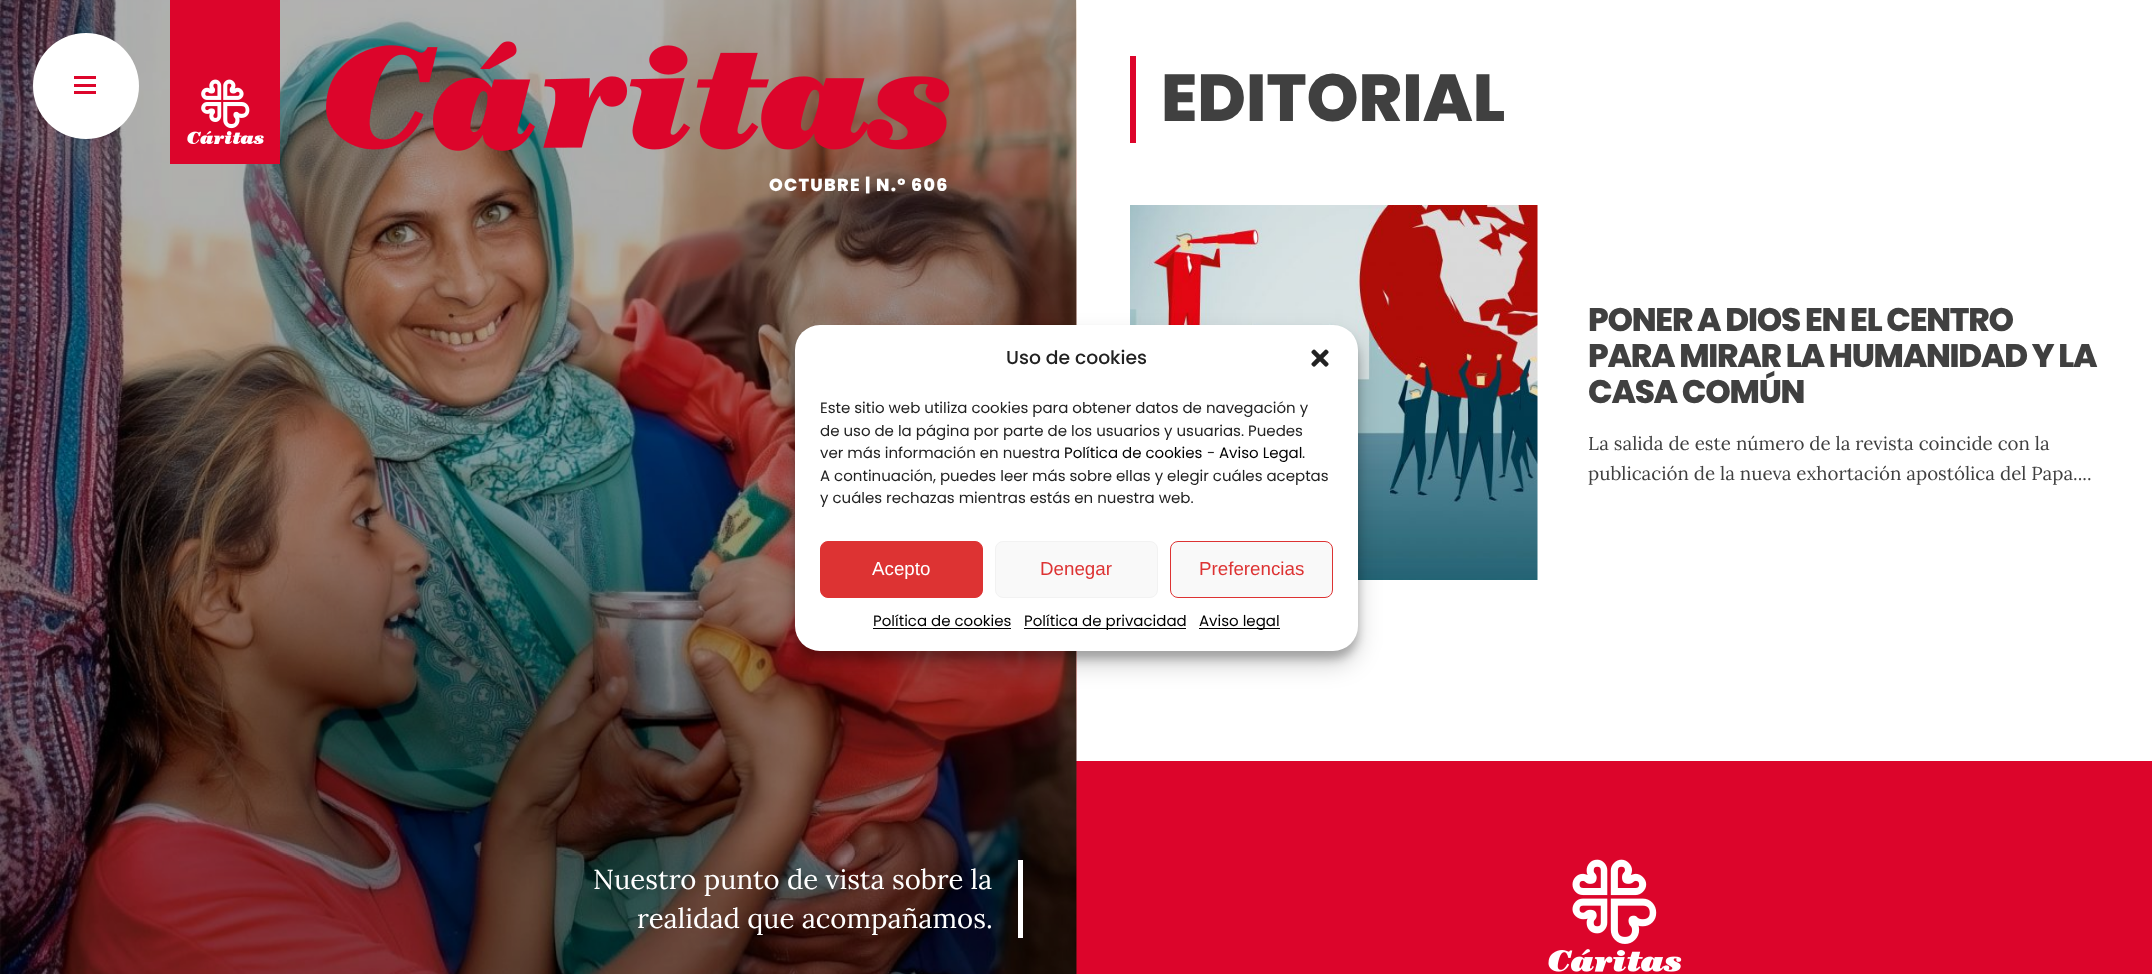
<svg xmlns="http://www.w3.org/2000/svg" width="2152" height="974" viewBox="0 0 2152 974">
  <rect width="100%" height="100%" fill="rgb(255,255,255)"/>
  <image x="0" y="0" width="1076" height="974" href="pic1.png"/>
  <rect x="1076" y="761" width="1076" height="213" fill="rgb(220,5,43)"/>
  <image x="1076" y="0" width="1" height="974" href="pic2.png"/>
  <circle cx="86" cy="86" r="53" fill="rgb(255,255,255)"/>
  <rect x="74" y="76" width="22" height="3" fill="rgb(221,5,43)"/>
  <rect x="74" y="84" width="22" height="3" fill="rgb(221,5,43)"/>
  <rect x="74" y="91" width="22" height="3" fill="rgb(221,5,43)"/>
  <image x="170" y="0" width="780" height="164" href="pic3.png"/>
  <text x="769" y="191" font-family="Poppins" font-size="17.5" font-weight="800" letter-spacing="1.25" fill="rgb(255,255,255)">OCTUBRE | N.º 606</text>
  <rect x="1018" y="860" width="5" height="78" fill="rgb(255,255,255)"/>
  <g font-family="Lora" font-size="27.5" fill="rgb(255,255,255)">
    <text x="593" y="889">Nuestro punto de vista sobre la</text>
    <text x="637" y="928">realidad que acompañamos.</text>
  </g>
  <rect x="1130" y="56" width="6" height="87" fill="rgb(221,5,43)"/>
  <text x="1161" y="121" font-family="Poppins" font-size="66.25" font-weight="800" fill="rgb(64,64,64)">EDITORIAL</text>
  <image x="1130" y="205" width="408" height="375" href="pic4.png"/>
  <g font-family="Poppins" font-size="32.5" font-weight="800" letter-spacing="-1.25" fill="rgb(64,64,64)">
    <text>
      <tspan x="1588" y="331">PONER A DIOS EN EL CENTRO</tspan>
      <tspan x="1588" y="367">PARA MIRAR LA HUMANIDAD Y LA</tspan>
      <tspan x="1588" y="403">CASA COMÚN</tspan>
    </text>
  </g>
  <g font-family="Lora" font-size="18.75" fill="rgb(64,64,64)">
    <text>
      <tspan x="1588" y="450">La salida de este número de la revista coincide con la</tspan>
      <tspan x="1588" y="480">publicación de la nueva exhortación apostólica del Papa....</tspan>
    </text>
  </g>
  <image x="1548" y="859" width="134" height="113" href="pic5.png"/>
  <rect x="795" y="333" width="563" height="326" rx="25" fill="rgba(0,0,0,0.23)" filter="blur(4px)"/>
  <rect x="795" y="338" width="563" height="326" rx="25" fill="rgba(0,0,0,0.19)" filter="blur(12.5px)"/>
  <rect x="795" y="325" width="563" height="326" rx="25" fill="rgb(255,255,255)"/>
  <text x="1006" y="364" font-family="Poppins" font-size="18.75" font-weight="500" fill="rgb(34,34,34)">Uso de cookies</text>
  <image x="1311" y="349" width="18" height="18" href="pic6.png"/>
  <g font-family="Poppins" font-size="15" fill="rgb(34,34,34)">
    <text>
      <tspan x="820" y="413">Este sitio web utiliza cookies para obtener datos de navegación y</tspan>
      <tspan x="820" y="436">de uso de la página por parte de los usuarios y usuarias. Puedes</tspan>
      <tspan x="820" y="458">ver más información en nuestra</tspan>
    </text>
  </g>
  <text x="1064" y="458" font-family="Poppins" font-size="15" fill="rgb(0,0,0)">Política de cookies</text>
  <text x="1207" y="458" font-family="Poppins" font-size="15" fill="rgb(34,34,34)">-</text>
  <text x="1219" y="458" font-family="Poppins" font-size="15" fill="rgb(0,0,0)">Aviso Legal</text>
  <g font-family="Poppins" font-size="15" fill="rgb(34,34,34)">
    <text x="1302" y="458">.</text>
    <text>
      <tspan x="820" y="481">A continuación, puedes leer más sobre ellas y elegir cuáles aceptas</tspan>
      <tspan x="820" y="503">y cuáles rechazas mientras estás en nuestra web.</tspan>
    </text>
  </g>
  <rect x="820.5" y="541.5" width="162" height="56" rx="7.5" fill="rgb(221,51,51)" stroke="rgb(221,51,51)"/>
  <text x="872" y="575" font-family="Liberation Sans" font-size="18.75" fill="rgb(255,255,255)">Acepto</text>
  <rect x="995.5" y="541.5" width="162" height="56" rx="7.5" fill="rgb(249,249,249)" stroke="rgb(242,242,242)"/>
  <text x="1040" y="575" font-family="Liberation Sans" font-size="18.75" fill="rgb(221,51,51)">Denegar</text>
  <rect x="1170.5" y="541.5" width="162" height="56" rx="7.5" fill="rgb(249,249,249)" stroke="rgb(221,51,51)"/>
  <text x="1199" y="575" font-family="Liberation Sans" font-size="18.75" fill="rgb(221,51,51)">Preferencias</text>
  <text x="873" y="626" font-family="Poppins" font-size="15" fill="rgb(0,0,0)">Política de cookies</text>
  <rect x="873" y="628" width="138" height="1" fill="rgb(0,0,0)"/>
  <rect x="1024" y="628" width="162" height="1" fill="rgb(0,0,0)"/>
  <text x="1024" y="626" font-family="Poppins" font-size="15" fill="rgb(0,0,0)">Política de privacidad</text>
  <rect x="1199" y="628" width="81" height="1" fill="rgb(0,0,0)"/>
  <text x="1199" y="626" font-family="Poppins" font-size="15" fill="rgb(0,0,0)">Aviso legal</text>
</svg>
